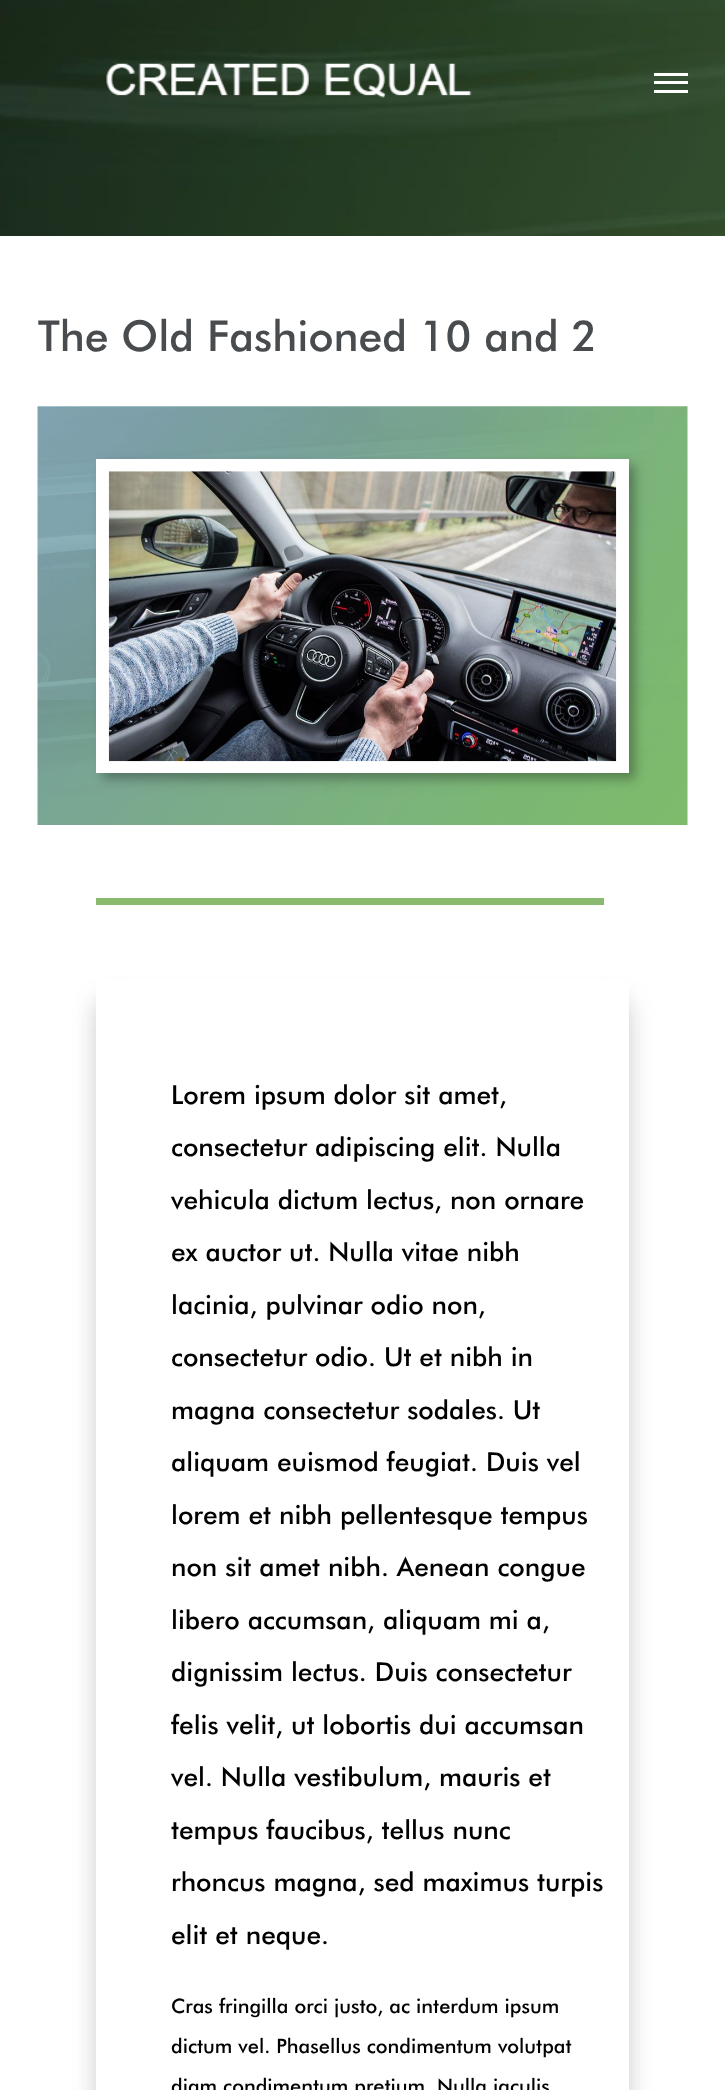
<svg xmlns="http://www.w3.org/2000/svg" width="725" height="2090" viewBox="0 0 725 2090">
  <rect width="100%" height="100%" fill="rgb(255,255,255)"/>
  <image x="0" y="0" width="725" height="236" href="pic1.png"/>
  <image x="106" y="63" width="366" height="35" href="pic2.png"/>
  <rect x="654" y="73" width="34" height="3" fill="rgb(255,255,255)"/>
  <rect x="654" y="81" width="34" height="3" fill="rgb(255,255,255)"/>
  <rect x="654" y="90" width="34" height="3" fill="rgb(255,255,255)"/>
  <text x="38" y="351" font-family="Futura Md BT" font-size="42.6" font-weight="500" fill="rgb(73,76,78)">The Old Fashioned 10 and 2</text>
  <image x="37" y="406" width="651" height="419" href="pic3.png"/>
  <rect x="103" y="465" width="532" height="314" fill="rgba(0,0,0,0.3)" filter="blur(5.5px)"/>
  <rect x="102.5" y="465.5" width="520" height="301" fill="none" stroke="rgb(255,255,255)" stroke-width="13"/>
  <image x="108" y="471" width="509" height="291" href="pic4.png"/>
  <rect x="96" y="898" width="508" height="7" fill="rgb(138,186,110)"/>
  <rect x="96" y="1000" width="533" height="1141" rx="13" fill="rgba(61,61,61,0.27)" filter="blur(12.5px)"/>
  <rect x="96" y="979" width="533" height="1111" fill="rgb(255,255,255)"/>
  <g font-family="Futura Md BT" font-size="26.25" font-weight="500" fill="rgb(0,0,0)">
    <text>
      <tspan x="171" y="1104">Lorem ipsum dolor sit amet,</tspan>
      <tspan x="171" y="1156">consectetur adipiscing elit. Nulla</tspan>
    </text>
    <text>
      <tspan x="171" y="1209">vehicula dictum lectus, non ornare</tspan>
      <tspan x="171" y="1261">ex auctor ut. Nulla vitae nibh</tspan>
    </text>
    <text>
      <tspan x="171" y="1314">lacinia, pulvinar odio non,</tspan>
      <tspan x="171" y="1366">consectetur odio. Ut et nibh in</tspan>
    </text>
    <text>
      <tspan x="171" y="1419">magna consectetur sodales. Ut</tspan>
      <tspan x="171" y="1471">aliquam euismod feugiat. Duis vel</tspan>
    </text>
    <text>
      <tspan x="171" y="1524">lorem et nibh pellentesque tempus</tspan>
      <tspan x="171" y="1576">non sit amet nibh. Aenean congue</tspan>
    </text>
    <text>
      <tspan x="171" y="1629">libero accumsan, aliquam mi a,</tspan>
      <tspan x="171" y="1681">dignissim lectus. Duis consectetur</tspan>
    </text>
    <text>
      <tspan x="171" y="1734">felis velit, ut lobortis dui accumsan</tspan>
      <tspan x="171" y="1786">vel. Nulla vestibulum, mauris et</tspan>
    </text>
    <text>
      <tspan x="171" y="1839">tempus faucibus, tellus nunc</tspan>
      <tspan x="171" y="1891">rhoncus magna, sed maximus turpis</tspan>
    </text>
    <text x="171" y="1944">elit et neque.</text>
  </g>
  <g font-family="Futura Md BT" font-size="20" font-weight="500" fill="rgb(0,0,0)">
    <text x="171" y="2013">Cras fringilla orci justo, ac interdum ipsum</text>
    <text x="171" y="2053">dictum vel. Phasellus condimentum volutpat</text>
    <text x="171" y="2093">diam condimentum pretium. Nulla iaculis</text>
  </g>
</svg>
